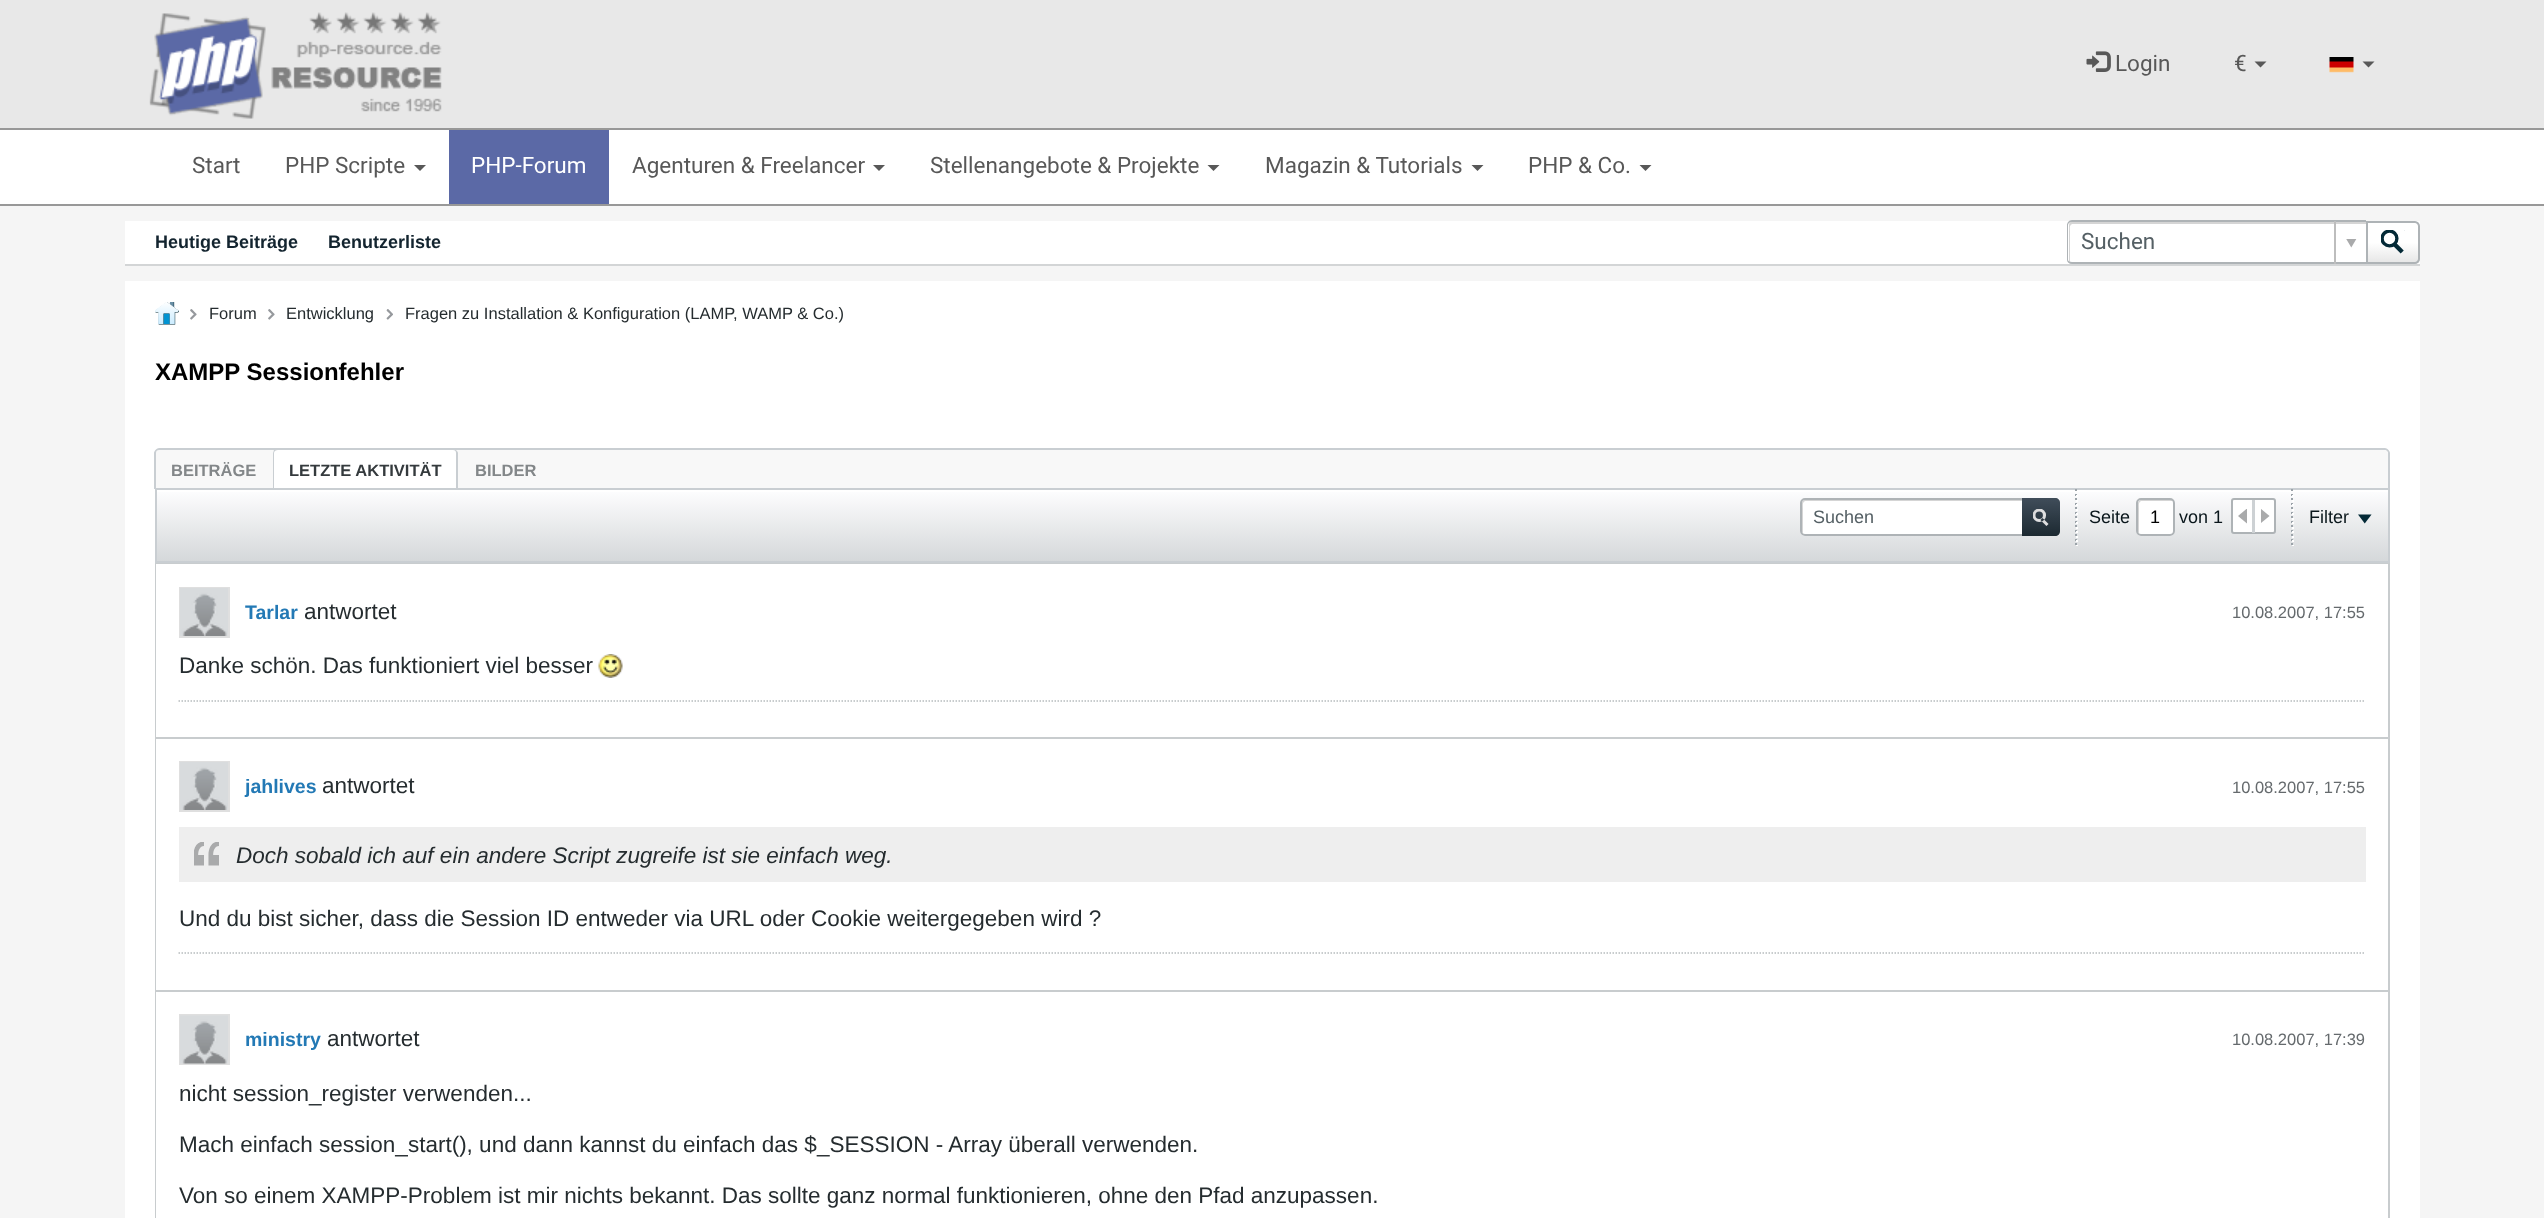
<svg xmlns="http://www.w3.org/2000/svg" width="2544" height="1218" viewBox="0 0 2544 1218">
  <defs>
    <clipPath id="clip1"><path d="M2366 221H2415C2418 221 2420 223 2420 226V259C2420 262 2418 264 2415 264H2366Z"/></clipPath>
    <linearGradient id="g1" gradientUnits="userSpaceOnUse" x1="2393" y1="263" x2="2393" y2="222"><stop offset="0" stop-color="rgb(230,230,230)"/><stop offset="0.5" stop-color="rgb(255,255,255)"/><stop offset="1" stop-color="rgb(255,255,255)"/></linearGradient>
    <clipPath id="clip2"><path d="M159 450H2385C2386.5 450 2388 451.5 2388 453V489H156V453C156 451.5 157.5 450 159 450Z"/></clipPath>
    <linearGradient id="g2" gradientUnits="userSpaceOnUse" x1="1272" y1="489" x2="1272" y2="561"><stop offset="0" stop-color="rgb(254,254,255)"/><stop offset="1" stop-color="rgb(213,216,218)"/></linearGradient>
    <linearGradient id="g3" gradientUnits="userSpaceOnUse" x1="2041" y1="498" x2="2041" y2="536"><stop offset="0" stop-color="rgb(64,77,90)"/><stop offset="1" stop-color="rgb(28,41,49)"/></linearGradient>
  </defs>
  <rect width="100%" height="100%" fill="rgb(245,245,245)"/>
  <rect x="0" y="0" width="2544" height="128" fill="rgb(232,232,232)"/>
  <rect x="0" y="128" width="2544" height="2" fill="rgb(152,152,152)"/>
  <image x="149" y="12" width="293" height="107" href="pic1.png"/>
  <image x="2086" y="51" width="25" height="21" href="pic2.png"/>
  <g font-family="Roboto" font-size="22.5" fill="rgb(88,88,88)">
    <text x="2115" y="71">Login</text>
    <text x="2234" y="71">€</text>
  </g>
  <path d="M2254.5 61.5H2266.5L2260.5 67.5Z" fill="rgb(88,88,88)"/>
  <image x="2329" y="57" width="25" height="16" href="pic3.png"/>
  <path d="M2362.5 61.5H2374.5L2368.5 67.5Z" fill="rgb(88,88,88)"/>
  <rect x="0" y="130" width="2544" height="74" fill="rgb(255,255,255)"/>
  <rect x="0" y="204" width="2544" height="2" fill="rgb(152,152,152)"/>
  <g font-family="Roboto" font-size="22.5" fill="rgb(88,88,88)">
    <text x="192" y="173">Start</text>
    <text x="285" y="173">PHP Scripte</text>
  </g>
  <path d="M414 165H426L420 171Z" fill="rgb(88,88,88)"/>
  <rect x="449" y="130" width="160" height="74" fill="rgb(91,105,166)"/>
  <text x="471" y="173" font-family="Roboto" font-size="22.5" fill="rgb(255,255,255)">PHP-Forum</text>
  <text x="632" y="173" font-family="Roboto" font-size="22.5" fill="rgb(88,88,88)">Agenturen &amp; Freelancer</text>
  <path d="M873 165H885L879 171Z" fill="rgb(88,88,88)"/>
  <text x="930" y="173" font-family="Roboto" font-size="22.5" fill="rgb(88,88,88)">Stellenangebote &amp; Projekte</text>
  <path d="M1207.5 165H1219.5L1213.5 171Z" fill="rgb(88,88,88)"/>
  <text x="1265" y="173" font-family="Roboto" font-size="22.5" fill="rgb(88,88,88)">Magazin &amp; Tutorials</text>
  <path d="M1471.5 165H1483.5L1477.5 171Z" fill="rgb(88,88,88)"/>
  <text x="1528" y="173" font-family="Roboto" font-size="22.5" fill="rgb(88,88,88)">PHP &amp; Co.</text>
  <path d="M1639.5 165H1651.5L1645.5 171Z" fill="rgb(88,88,88)"/>
  <rect x="125" y="221" width="2295" height="43" fill="rgb(255,255,255)"/>
  <rect x="125" y="264" width="2295" height="2" fill="rgb(211,213,214)"/>
  <g font-family="Liberation Sans" font-size="18" font-weight="bold" fill="rgb(19,36,47)">
    <text x="155" y="248">Heutige Beiträge</text>
    <text x="328" y="248">Benutzerliste</text>
  </g>
  <path d="M2073 224H2366V222H2072C2070 222 2069 223 2069 225V260C2069 261 2069 262 2070 262V232C2070 229 2069 224 2073 224Z" fill="rgb(213,213,213)"/>
  <path d="M2072 220H2366V264H2072C2069 264 2067 262 2067 260V225C2067 223 2069 220 2072 220ZM2072 222H2366V262H2072C2070 262 2068 261 2068 260V225C2068 223 2070 222 2072 222Z" fill="rgb(174,179,182)" fill-rule="evenodd"/>
  <text x="2081" y="249" font-family="Roboto" font-size="22.5" fill="rgb(85,96,101)">Suchen</text>
  <rect x="2334" y="221" width="2" height="43" fill="rgb(189,189,189)"/>
  <image x="2346" y="239" width="11" height="9" href="pic4.png"/>
  <g clip-path="url(#clip1)">
    <rect x="2368" y="222" width="52" height="41" fill="url(#g1)"/>
  </g>
  <path d="M2367 222H2415C2417 222 2419 224 2419 226V259C2419 261 2417 263 2415 263H2367Z" fill="none" stroke="rgb(174,179,182)" stroke-width="2"/>
  <image x="2381" y="230" width="24" height="24" href="pic5.png"/>
  <rect x="125" y="281" width="2295" height="937" fill="rgb(255,255,255)"/>
  <image x="155" y="302" width="24" height="23" href="pic6.png"/>
  <image x="190" y="309" width="7" height="11" href="pic7.png"/>
  <text x="209" y="319" font-family="Liberation Sans" font-size="16.5" fill="rgb(37,44,47)">Forum</text>
  <image x="268" y="309" width="7" height="11" href="pic7.png"/>
  <text x="286" y="319" font-family="Liberation Sans" font-size="16.5" fill="rgb(37,44,47)">Entwicklung</text>
  <image x="386" y="309" width="7" height="11" href="pic8.png"/>
  <text x="405" y="319" font-family="Liberation Sans" font-size="16.5" fill="rgb(37,44,47)">Fragen zu Installation &amp; Konfiguration (LAMP, WAMP &amp; Co.)</text>
  <text x="155" y="380" font-family="Liberation Sans" font-size="24" font-weight="bold" fill="rgb(0,0,0)">XAMPP Sessionfehler</text>
  <path d="M160 449H2385C2388 449 2390 451 2390 454V489H155V454C155 451 157 449 160 449Z" fill="rgb(248,248,248)"/>
  <path d="M159 448H2385C2387 448 2390 451 2390 453V489H154V453C154 451 157 448 159 448ZM159 450H2386L2388 452V489H156V453C156 451 157 450 159 450Z" fill="rgb(201,206,210)" fill-rule="evenodd"/>
  <text x="171" y="476" font-family="Liberation Sans" font-size="16.5" font-weight="bold" fill="rgb(131,135,137)">BEITRÄGE</text>
  <g clip-path="url(#clip2)">
    <path d="M278 449H453C456 449 458 451 458 454V489H273V454C273 451 275 449 278 449Z" fill="rgb(255,255,255)"/>
  </g>
  <path d="M278 450H274L273 453V489H274V453C274 451 276 450 278 450ZM453 450C455 450 456 451 456 453V489H458V453C458 452 457 451 456 450Z" fill="rgb(201,206,210)" fill-rule="evenodd"/>
  <text x="289" y="476" font-family="Liberation Sans" font-size="16.5" font-weight="bold" fill="rgb(52,58,61)">LETZTE AKTIVITÄT</text>
  <text x="475" y="476" font-family="Liberation Sans" font-size="16.5" font-weight="bold" fill="rgb(131,135,137)">BILDER</text>
  <rect x="157" y="492" width="2231" height="69" fill="url(#g2)"/>
  <rect x="156" y="489" width="2233" height="73" fill="none" stroke="rgb(201,206,210)" stroke-width="2"/>
  <rect x="1800" y="498" width="260" height="38" rx="5" fill="rgb(255,255,255)"/>
  <path d="M1806 501H2057C2057 500 2056 500 2055 500H1805C1803 500 1802 501 1802 503V531C1802 532 1802 533 1803 533V509C1803 506 1802 501 1806 501Z" fill="rgb(213,213,213)"/>
  <rect x="1801" y="499" width="258" height="36" rx="4" fill="none" stroke="rgb(174,179,182)" stroke-width="2"/>
  <text x="1813" y="523" font-family="Liberation Sans" font-size="18" fill="rgb(85,96,101)">Suchen</text>
  <path d="M2022 498H2055C2058 498 2060 500 2060 503V531C2060 534 2058 536 2055 536H2022Z" fill="url(#g3)"/>
  <image x="2033" y="509" width="16" height="17" href="pic9.png"/>
  <image x="2075" y="489" width="2" height="56" href="pic10.png"/>
  <image x="2076" y="495" width="2" height="51" href="pic11.png"/>
  <text x="2089" y="523" font-family="Liberation Sans" font-size="18" fill="rgb(9,22,27)">Seite</text>
  <rect x="2136" y="498" width="39" height="38" rx="5" fill="rgb(255,255,255)"/>
  <path d="M2142 501H2173.5C2173 500.5 2172 500 2171 500H2141C2139.5 500 2138 501.5 2138 503V531C2138 532 2138.5 533 2139 533.5V508.5C2139 506 2138 501 2142 501Z" fill="rgb(213,213,213)"/>
  <rect x="2137" y="499" width="37" height="36" rx="4" fill="none" stroke="rgb(174,179,182)" stroke-width="2"/>
  <text x="2150" y="523" font-family="Liberation Sans" font-size="18" fill="rgb(0,0,0)">1</text>
  <text x="2179" y="523" font-family="Liberation Sans" font-size="18" fill="rgb(9,22,27)">von 1</text>
  <rect x="2232" y="499" width="43" height="34" rx="2" fill="rgb(255,255,255)" stroke="rgb(174,179,182)" stroke-width="2"/>
  <rect x="2252" y="500" width="3" height="33" fill="rgb(205,209,212)"/>
  <image x="2238" y="509" width="9" height="15" href="pic12.png"/>
  <image x="2261" y="509" width="9" height="14" href="pic13.png"/>
  <image x="2291" y="489" width="2" height="56" href="pic10.png"/>
  <image x="2292" y="495" width="2" height="51" href="pic11.png"/>
  <text x="2309" y="523" font-family="Liberation Sans" font-size="18" fill="rgb(9,22,27)">Filter</text>
  <image x="2358" y="514" width="14" height="10" href="pic14.png"/>
  <rect x="156" y="564" width="2233" height="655" fill="none" stroke="rgb(200,204,206)" stroke-width="2"/>
  <rect x="156" y="564" width="2232" height="173" fill="rgb(255,255,255)"/>
  <rect x="180" y="588" width="49" height="49" fill="none" stroke="rgb(223,223,223)" stroke-width="2"/>
  <image x="180" y="588" width="48" height="48" href="pic15.png"/>
  <text x="245" y="619" font-family="Liberation Sans" font-size="19.5" font-weight="bold" fill="rgb(35,121,181)">Tarlar</text>
  <text x="304" y="619" font-family="Liberation Sans" font-size="22.5" fill="rgb(37,44,47)">antwortet</text>
  <text x="2232" y="618" font-family="Liberation Sans" font-size="16.5" fill="rgb(101,106,109)">10.08.2007, 17:55</text>
  <text x="179" y="673" font-family="Liberation Sans" font-size="22.5" fill="rgb(37,44,47)">Danke schön. Das funktioniert viel besser</text>
  <image x="598" y="654" width="25" height="24" href="pic16.png"/>
  <path d="M178.5 701H2365.5" fill="none" stroke="rgb(183,188,190)" stroke-width="1.5" stroke-dasharray="1.5 1.5"/>
  <rect x="156" y="739" width="1" height="251" fill="rgb(255,255,255)"/>
  <rect x="156" y="737" width="2232" height="2" fill="rgb(200,204,206)"/>
  <rect x="180" y="762" width="49" height="49" fill="none" stroke="rgb(223,223,223)" stroke-width="2"/>
  <image x="180" y="762" width="48" height="48" href="pic15.png"/>
  <text x="245" y="793" font-family="Liberation Sans" font-size="19.5" font-weight="bold" fill="rgb(35,121,181)">jahlives</text>
  <text x="322" y="793" font-family="Liberation Sans" font-size="22.5" fill="rgb(37,44,47)">antwortet</text>
  <text x="2232" y="793" font-family="Liberation Sans" font-size="16.5" fill="rgb(101,106,109)">10.08.2007, 17:55</text>
  <rect x="179" y="827" width="2187" height="55" fill="rgb(238,238,238)"/>
  <image x="194" y="842" width="25" height="24" href="pic17.png"/>
  <text x="236" y="863" font-family="Liberation Sans" font-size="22.5" font-style="italic" fill="rgb(37,44,47)">Doch sobald ich auf ein andere Script zugreife ist sie einfach weg.</text>
  <text x="179" y="926" font-family="Liberation Sans" font-size="22.5" fill="rgb(37,44,47)">Und du bist sicher, dass die Session ID entweder via URL oder Cookie weitergegeben wird ?</text>
  <path d="M178.5 953H2365.5" fill="none" stroke="rgb(183,188,190)" stroke-width="1.5" stroke-dasharray="1.5 1.5"/>
  <rect x="156" y="992" width="1" height="226" fill="rgb(255,255,255)"/>
  <rect x="156" y="990" width="2232" height="2" fill="rgb(200,204,206)"/>
  <rect x="180" y="1015" width="49" height="49" fill="none" stroke="rgb(223,223,223)" stroke-width="2"/>
  <image x="180" y="1015" width="48" height="49" href="pic18.png"/>
  <text x="245" y="1046" font-family="Liberation Sans" font-size="19.5" font-weight="bold" fill="rgb(35,121,181)">ministry</text>
  <text x="327" y="1046" font-family="Liberation Sans" font-size="22.5" fill="rgb(37,44,47)">antwortet</text>
  <text x="2232" y="1045" font-family="Liberation Sans" font-size="16.5" fill="rgb(101,106,109)">10.08.2007, 17:39</text>
  <g font-family="Liberation Sans" font-size="22.5" fill="rgb(37,44,47)">
    <text x="179" y="1101">nicht session_register verwenden...</text>
    <text x="179" y="1152">Mach einfach session_start(), und dann kannst du einfach das $_SESSION - Array überall verwenden.</text>
    <text x="179" y="1203">Von so einem XAMPP-Problem ist mir nichts bekannt. Das sollte ganz normal funktionieren, ohne den Pfad anzupassen.</text>
  </g>
</svg>
